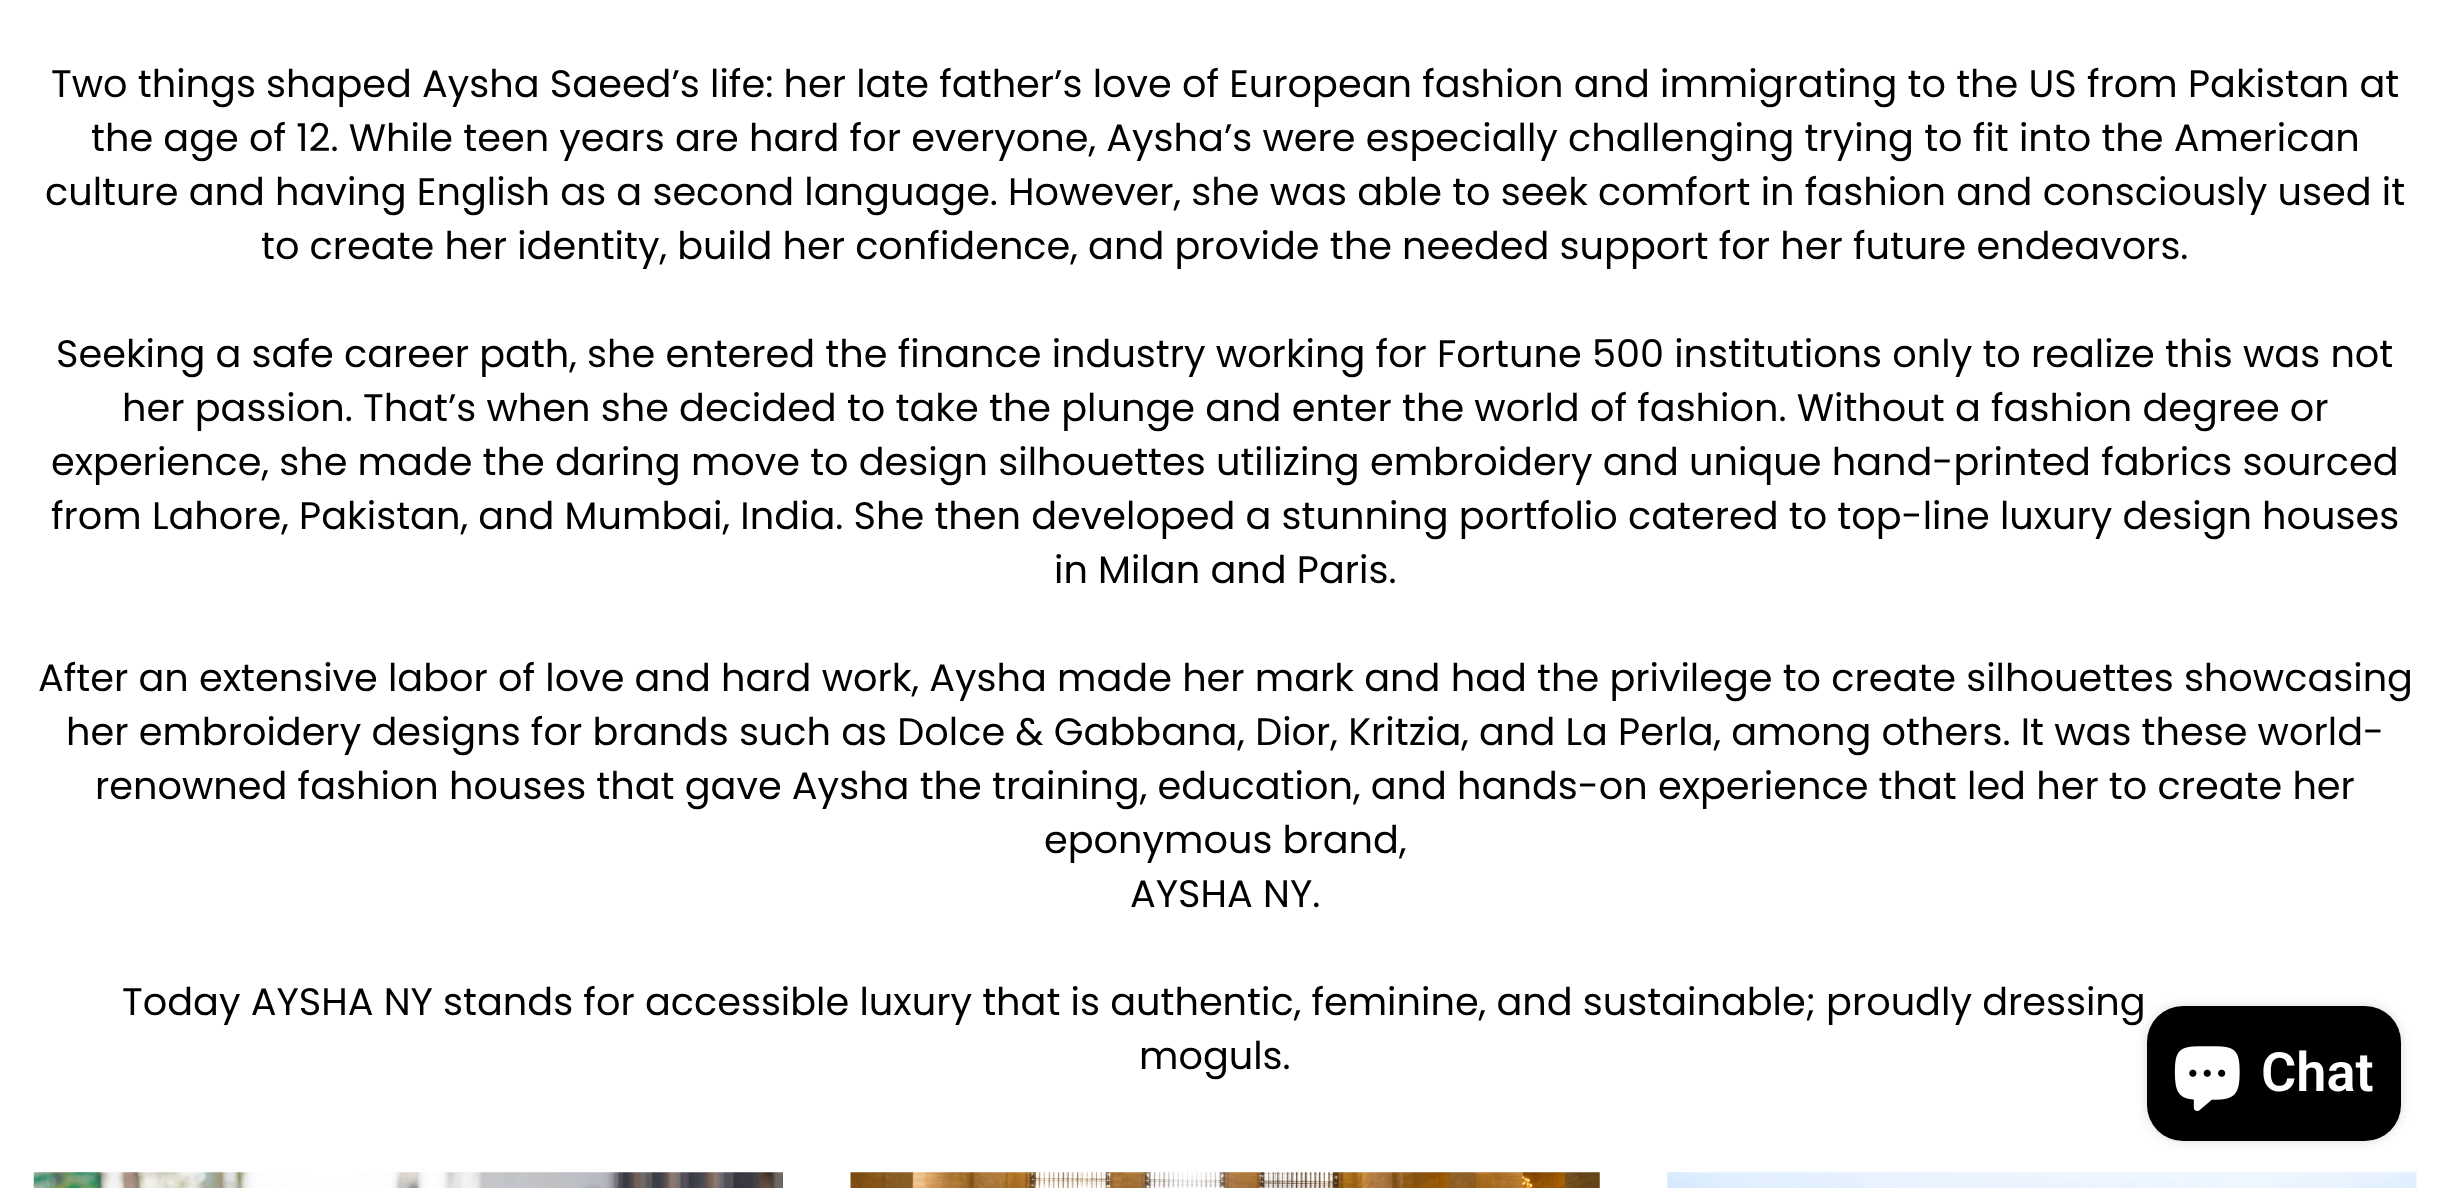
<svg xmlns="http://www.w3.org/2000/svg" width="2450" height="1188" viewBox="0 0 2450 1188">
  <rect width="100%" height="100%" fill="rgb(255,255,255)"/>
  <g font-family="Poppins" font-size="38.25" fill="rgb(0,0,0)">
    <text x="51" y="97">Two things shaped Aysha Saeed’s life: her late father’s love of European fashion and immigrating to the US from Pakistan at</text>
    <text x="91" y="151">the age of 12. While teen years are hard for everyone, Aysha’s were especially challenging trying to fit into the American</text>
    <text x="45" y="205">culture and having English as a second language. However, she was able to seek comfort in fashion and consciously used it</text>
    <text x="261" y="259">to create her identity, build her confidence, and provide the needed support for her future endeavors.</text>
    <text x="56" y="367">Seeking a safe career path, she entered the finance industry working for Fortune 500 institutions only to realize this was not</text>
    <text x="122" y="421">her passion. That’s when she decided to take the plunge and enter the world of fashion. Without a fashion degree or</text>
    <text>
      <tspan x="51" y="475">experience, she made the daring move to design silhouettes utilizing embroidery and unique hand-printed fabrics sourced</tspan>
      <tspan x="51" y="529">from Lahore, Pakistan, and Mumbai, India. She then developed a stunning portfolio catered to top-line luxury design houses</tspan>
    </text>
    <text x="1054" y="583">in Milan and Paris.</text>
    <text x="38" y="691">After an extensive labor of love and hard work, Aysha made her mark and had the privilege to create silhouettes showcasing</text>
    <text x="66" y="745">her embroidery designs for brands such as Dolce &amp; Gabbana, Dior, Kritzia, and La Perla, among others. It was these world-</text>
    <text x="95" y="799">renowned fashion houses that gave Aysha the training, education, and hands-on experience that led her to create her</text>
    <text x="1044" y="853">eponymous brand,</text>
    <text x="1130" y="907">AYSHA NY.</text>
    <text x="122" y="1015">Today AYSHA NY stands for accessible luxury that is authentic, feminine, and sustainable; proudly dressing</text>
    <text x="1139" y="1069">moguls.</text>
  </g>
  <image x="33" y="1172" width="750" height="16" href="pic1.png"/>
  <image x="850" y="1172" width="750" height="16" href="pic2.png"/>
  <image x="1667" y="1172" width="750" height="16" href="pic3.png"/>
  <rect x="2147" y="1006" width="254" height="135" rx="36" fill="rgba(0,0,0,0.15)" filter="blur(5.5px)"/>
  <rect x="2147" y="1006" width="254" height="135" rx="36" fill="rgb(0,0,0)"/>
  <image x="2174" y="1046" width="66" height="65" href="pic4.png"/>
  <text x="2261" y="1091" font-family="Roboto" font-size="54" font-weight="600" fill="rgb(255,255,255)">Chat</text>
</svg>
